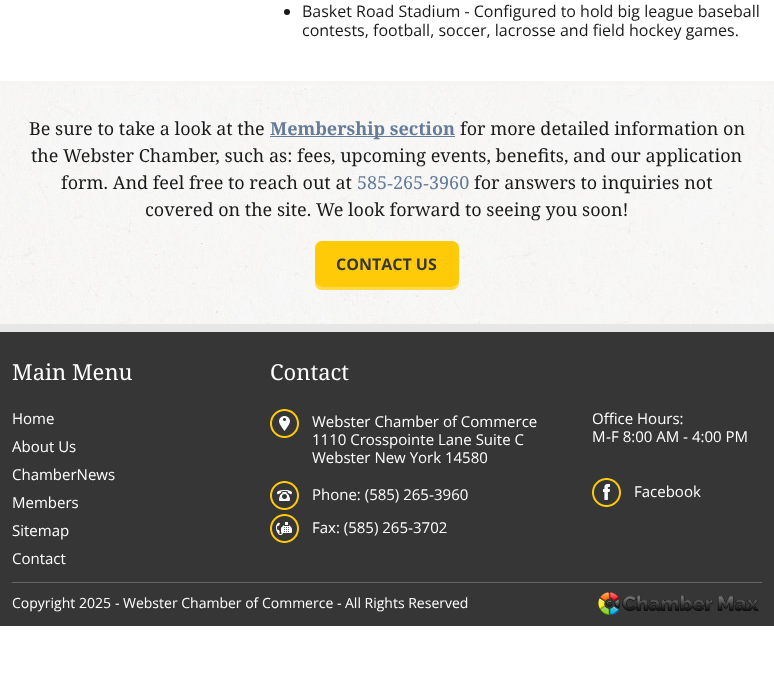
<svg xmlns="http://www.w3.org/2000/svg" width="774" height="674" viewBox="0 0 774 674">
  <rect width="100%" height="100%" fill="rgb(255,255,255)"/>
  <circle cx="287" cy="12" r="3" fill="rgb(26,26,26)"/>
  <g font-family="Open Sans" font-size="16" fill="rgb(26,26,26)">
    <text>
      <tspan x="302" y="17">Basket Road Stadium - Configured to hold big league baseball</tspan>
      <tspan x="302" y="36">contests, football, soccer, lacrosse and field hockey games.</tspan>
    </text>
  </g>
  <rect x="0" y="81" width="774" height="4" fill="rgb(246,245,244)"/>
  <image x="0" y="85" width="774" height="239" href="pic1.png"/>
  <text x="29" y="135" font-family="Noto Serif" font-size="18" fill="rgb(26,26,26)">Be sure to take a look at the</text>
  <rect x="270" y="136" width="185" height="1" fill="rgb(101,123,153)"/>
  <text x="270" y="135" font-family="Noto Serif" font-size="18" font-weight="bold" fill="rgb(101,123,153)">Membership section</text>
  <g font-family="Noto Serif" font-size="18" fill="rgb(26,26,26)">
    <text x="460" y="135">for more detailed information on</text>
    <text x="31" y="162">the Webster Chamber, such as: fees, upcoming events, benefits, and our application</text>
    <text x="61" y="189">form. And feel free to reach out at</text>
  </g>
  <text x="357" y="189" font-family="Noto Serif" font-size="18" fill="rgb(101,123,153)">585</text>
  <text x="387" y="189" font-family="Liberation Serif" font-size="18" fill="rgb(101,123,153)">‐</text>
  <text x="393" y="189" font-family="Noto Serif" font-size="18" fill="rgb(101,123,153)">265</text>
  <text x="423" y="189" font-family="Liberation Serif" font-size="18" fill="rgb(101,123,153)">‐</text>
  <text x="429" y="189" font-family="Noto Serif" font-size="18" fill="rgb(101,123,153)">3960</text>
  <g font-family="Noto Serif" font-size="18" fill="rgb(26,26,26)">
    <text x="474" y="189">for answers to inquiries not</text>
    <text x="145" y="216">covered on the site. We look forward to seeing you soon!</text>
  </g>
  <path d="M315 280V283C315 287 318 290 322 290H452C456 290 459 287 459 283V280C459 284 456 287 452 287H322C318 287 315 284 315 280Z" fill="rgb(255,216,72)"/>
  <rect x="315" y="241" width="144" height="46" rx="7" fill="rgb(255,203,8)"/>
  <text x="336" y="270" font-family="Open Sans" font-size="16" font-weight="bold" fill="rgb(54,54,54)">CONTACT US</text>
  <rect x="0" y="332" width="774" height="294" fill="rgb(54,54,54)"/>
  <rect x="0" y="324" width="774" height="8" fill="rgb(231,231,231)"/>
  <text x="12" y="380" font-family="Noto Serif" font-size="22" fill="rgb(255,255,255)">Main Menu</text>
  <g font-family="Open Sans" font-size="15" fill="rgb(255,255,255)">
    <text>
      <tspan x="12" y="424">Home</tspan>
      <tspan x="12" y="452">About Us</tspan>
      <tspan x="12" y="480">ChamberNews</tspan>
      <tspan x="12" y="508">Members</tspan>
      <tspan x="12" y="536">Sitemap</tspan>
      <tspan x="12" y="564">Contact</tspan>
    </text>
  </g>
  <text x="270" y="380" font-family="Noto Serif" font-size="22" fill="rgb(255,255,255)">Contact</text>
  <image x="270" y="409" width="29" height="29" href="pic2.png"/>
  <g font-family="Open Sans" font-size="15" fill="rgb(255,255,255)">
    <text>
      <tspan x="312" y="427">Webster Chamber of Commerce</tspan>
      <tspan x="312" y="445">1110 Crosspointe Lane Suite C</tspan>
      <tspan x="312" y="463">Webster New York 14580</tspan>
    </text>
  </g>
  <image x="270" y="481" width="29" height="29" href="pic3.png"/>
  <text x="312" y="500" font-family="Open Sans" font-size="15" fill="rgb(255,255,255)">Phone: (585) 265</text>
  <text x="429" y="500" font-family="Liberation Sans" font-size="15" fill="rgb(255,255,255)">‐</text>
  <text x="434" y="500" font-family="Open Sans" font-size="15" fill="rgb(255,255,255)">3960</text>
  <image x="270" y="514" width="29" height="29" href="pic4.png"/>
  <text x="312" y="533" font-family="Open Sans" font-size="15" fill="rgb(255,255,255)">Fax: (585) 265</text>
  <text x="408" y="533" font-family="Liberation Sans" font-size="15" fill="rgb(255,255,255)">‐</text>
  <g font-family="Open Sans" font-size="15" fill="rgb(255,255,255)">
    <text x="413" y="533">3702</text>
    <text>
      <tspan x="592" y="424">Office Hours:</tspan>
      <tspan x="592" y="442">M</tspan>
    </text>
  </g>
  <text x="606" y="442" font-family="Liberation Sans" font-size="15" fill="rgb(255,255,255)">‐</text>
  <text x="611" y="442" font-family="Open Sans" font-size="15" fill="rgb(255,255,255)">F 8:00 AM</text>
  <text x="683" y="442" font-family="Liberation Sans" font-size="15" fill="rgb(255,255,255)">‐</text>
  <text x="692" y="442" font-family="Open Sans" font-size="15" fill="rgb(255,255,255)">4:00 PM</text>
  <image x="592" y="478" width="29" height="29" href="pic5.png"/>
  <text x="634" y="497" font-family="Open Sans" font-size="15" fill="rgb(255,255,255)">Facebook</text>
  <rect x="12" y="582" width="750" height="1" fill="rgb(101,101,101)"/>
  <text x="12" y="608" font-family="Open Sans" font-size="14" fill="rgb(255,255,255)">Copyright 2025</text>
  <text x="115" y="608" font-family="Liberation Sans" font-size="14" fill="rgb(255,255,255)">‐</text>
  <text x="123" y="608" font-family="Open Sans" font-size="14" fill="rgb(255,255,255)">Webster Chamber of Commerce</text>
  <text x="337" y="608" font-family="Liberation Sans" font-size="14" fill="rgb(255,255,255)">‐</text>
  <text x="345" y="608" font-family="Open Sans" font-size="14" fill="rgb(255,255,255)">All Rights Reserved</text>
  <image x="598" y="592" width="161" height="23" href="pic6.png"/>
</svg>
